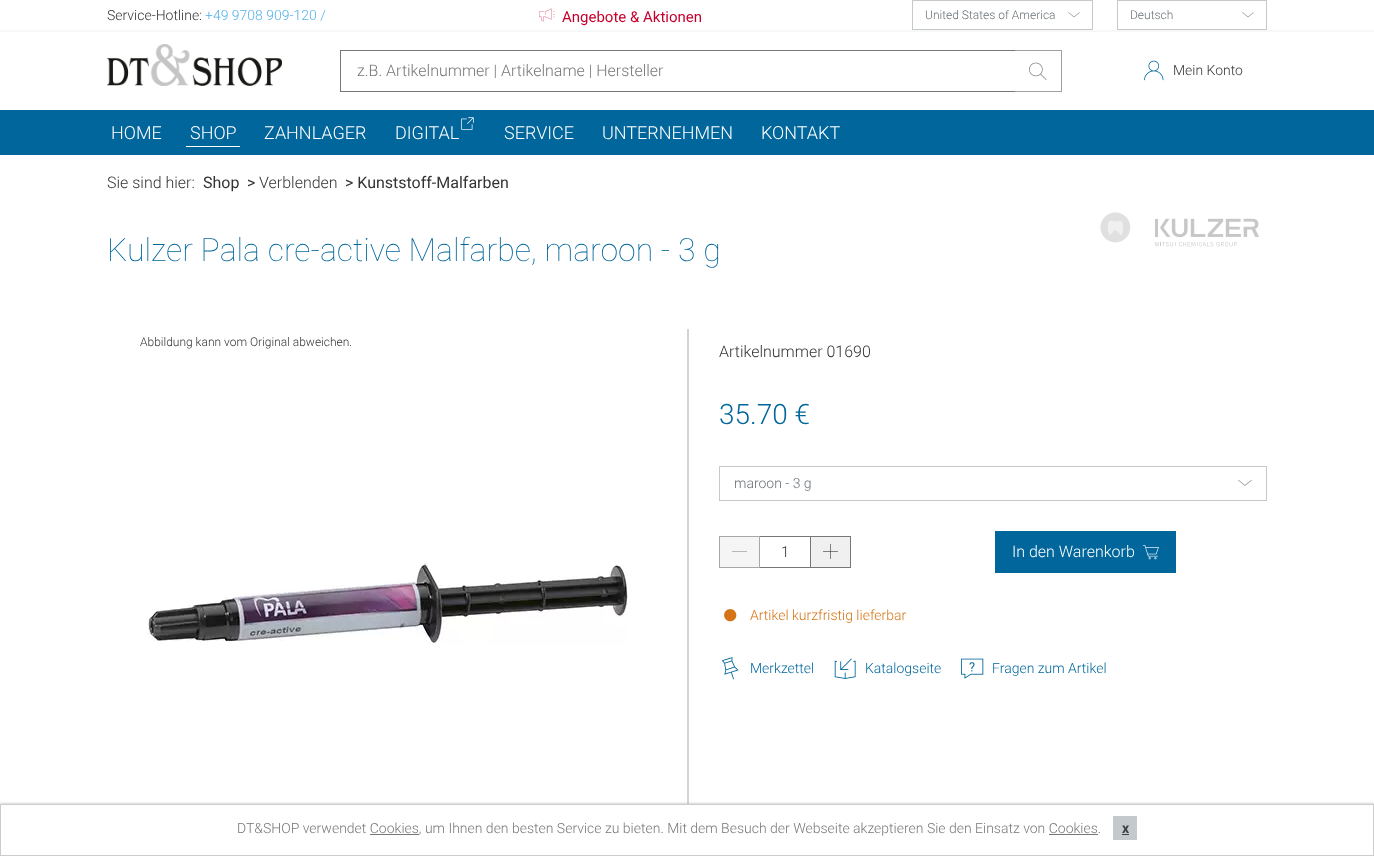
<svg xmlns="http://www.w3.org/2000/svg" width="1374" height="856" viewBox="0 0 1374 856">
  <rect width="100%" height="100%" fill="rgb(255,255,255)"/>
  <rect x="0" y="30" width="1374" height="2" fill="rgb(246,247,248)"/>
  <text x="107" y="20" font-family="Roboto" font-size="14" font-weight="300" fill="rgb(51,51,51)">Service-Hotline:</text>
  <text x="205" y="20" font-family="Roboto" font-size="14" font-weight="300" fill="rgb(83,177,231)">+49 9708 909-120 /</text>
  <image x="539" y="8" width="16" height="14" href="pic1.png"/>
  <text x="562" y="22" font-family="Roboto" font-size="15" fill="rgb(197,0,45)">Angebote &amp; Aktionen</text>
  <rect x="912.5" y="0.5" width="180" height="29" fill="none" stroke="rgb(198,200,202)"/>
  <text x="925" y="19" font-family="Roboto" font-size="12" font-weight="300" fill="rgb(104,111,116)">United States of America</text>
  <image x="1068" y="12" width="12" height="6" href="pic2.png"/>
  <rect x="1117.5" y="0.5" width="149" height="29" fill="none" stroke="rgb(198,200,202)"/>
  <text x="1130" y="19" font-family="Roboto" font-size="12" font-weight="300" fill="rgb(104,111,116)">Deutsch</text>
  <image x="1242" y="12" width="12" height="6" href="pic2.png"/>
  <image x="107" y="44" width="175" height="42" href="pic3.png"/>
  <rect x="340" y="50" width="675" height="1" fill="rgb(119,119,119)"/>
  <rect x="340" y="91" width="675" height="1" fill="rgb(119,119,119)"/>
  <rect x="340" y="50" width="1" height="42" fill="rgb(119,119,119)"/>
  <text x="357" y="76" font-family="Roboto" font-size="16" font-weight="300" fill="rgb(119,119,119)">z.B. Artikelnummer | Artikelname | Hersteller</text>
  <rect x="1015" y="50" width="47" height="1" fill="rgb(158,160,162)"/>
  <rect x="1061" y="50" width="1" height="42" fill="rgb(158,160,162)"/>
  <rect x="1015" y="91" width="47" height="1" fill="rgb(158,160,162)"/>
  <image x="1029" y="62" width="18" height="18" href="pic4.png"/>
  <image x="1144" y="60" width="20" height="21" href="pic5.png"/>
  <text x="1173" y="75" font-family="Roboto" font-size="14" font-weight="300" fill="rgb(51,51,51)">Mein Konto</text>
  <rect x="0" y="110" width="1374" height="45" fill="rgb(0,102,155)"/>
  <g font-family="Roboto" font-size="18" font-weight="300" fill="rgb(255,255,255)">
    <text x="111" y="139">HOME</text>
    <text x="190" y="139">SHOP</text>
  </g>
  <rect x="186" y="146" width="54" height="1" fill="rgb(255,255,255)"/>
  <text x="264" y="139" font-family="Roboto" font-size="18" font-weight="300" fill="rgb(255,255,255)">ZAHNLAGER</text>
  <image x="461" y="117" width="13" height="13" href="pic6.png"/>
  <g font-family="Roboto" font-size="18" font-weight="300" fill="rgb(255,255,255)">
    <text x="395" y="139">DIGITAL</text>
    <text x="504" y="139">SERVICE</text>
    <text x="602" y="139">UNTERNEHMEN</text>
    <text x="761" y="139">KONTAKT</text>
  </g>
  <text x="107" y="188" font-family="Roboto" font-size="16" font-weight="300" fill="rgb(51,51,51)">Sie sind hier:</text>
  <g font-family="Roboto" font-size="16" fill="rgb(51,51,51)">
    <text x="203" y="188">Shop</text>
    <text x="247" y="188">&gt;</text>
  </g>
  <text x="259" y="188" font-family="Roboto" font-size="16" font-weight="300" fill="rgb(51,51,51)">Verblenden</text>
  <text x="345" y="188" font-family="Roboto" font-size="16" fill="rgb(51,51,51)">&gt; Kunststoff-Malfarben</text>
  <image x="1100" y="212" width="159" height="35" href="pic7.png"/>
  <text x="107" y="261" font-family="Roboto" font-size="32" font-weight="100" fill="rgb(0,102,155)">Kulzer Pala cre-active Malfarbe, maroon - 3 g</text>
  <text x="140" y="346" font-family="Roboto" font-size="12" font-weight="300" fill="rgb(51,51,51)">Abbildung kann vom Original abweichen.</text>
  <image x="148" y="563" width="480" height="82" href="pic8.png"/>
  <rect x="687" y="329" width="2" height="475" fill="rgb(211,211,211)"/>
  <text x="719" y="357" font-family="Roboto" font-size="16" font-weight="300" fill="rgb(51,51,51)">Artikelnummer 01690</text>
  <text x="719" y="424" font-family="Roboto" font-size="28" font-weight="300" fill="rgb(0,102,155)">35.70 €</text>
  <rect x="719.5" y="466.5" width="547" height="34" fill="none" stroke="rgb(198,200,202)"/>
  <text x="734" y="488" font-family="Roboto" font-size="14" font-weight="300" fill="rgb(104,111,116)">maroon - 3 g</text>
  <image x="1238" y="480" width="14" height="6" href="pic9.png"/>
  <rect x="719.5" y="536.5" width="40" height="31" fill="rgb(245,245,245)" stroke="rgb(167,167,167)"/>
  <path d="M732 551H747V551.5H732Z" fill="rgb(122,122,122)"/>
  <rect x="760" y="536" width="50" height="1" fill="rgb(119,119,119)"/>
  <rect x="760" y="567" width="50" height="1" fill="rgb(119,119,119)"/>
  <text x="781" y="557" font-family="Roboto" font-size="15" font-weight="300" fill="rgb(51,51,51)">1</text>
  <rect x="810.5" y="536.5" width="40" height="31" fill="rgb(240,240,240)" stroke="rgb(119,119,119)"/>
  <image x="823" y="543" width="15" height="16" href="pic10.png"/>
  <rect x="995" y="531" width="181" height="42" fill="rgb(0,102,155)"/>
  <text x="1012" y="557" font-family="Roboto" font-size="16" font-weight="300" fill="rgb(255,255,255)">In den Warenkorb</text>
  <image x="1143" y="545" width="16" height="15" href="pic11.png"/>
  <image x="724" y="609" width="13" height="13" href="pic12.png"/>
  <text x="750" y="620" font-family="Roboto" font-size="14" font-weight="300" fill="rgb(213,116,23)">Artikel kurzfristig lieferbar</text>
  <image x="721" y="657" width="18" height="23" href="pic13.png"/>
  <text x="750" y="673" font-family="Roboto" font-size="14" font-weight="300" fill="rgb(0,102,155)">Merkzettel</text>
  <image x="834" y="658" width="22" height="21" href="pic14.png"/>
  <text x="865" y="673" font-family="Roboto" font-size="14" font-weight="300" fill="rgb(0,102,155)">Katalogseite</text>
  <image x="961" y="658" width="23" height="21" href="pic15.png"/>
  <text x="992" y="673" font-family="Roboto" font-size="14" font-weight="300" fill="rgb(0,102,155)">Fragen zum Artikel</text>
  <rect x="0" y="804" width="1374" height="52" fill="rgb(177,177,177)" filter="blur(1.5px)"/>
  <rect x="0.5" y="804.5" width="1373" height="51" fill="rgb(255,255,255)" stroke="rgb(204,204,204)"/>
  <text x="237" y="833" font-family="Roboto" font-size="14" font-weight="300" fill="rgb(119,119,119)">DT&amp;SHOP verwendet Cookies, um Ihnen den besten Service zu bieten. Mit dem Besuch der Webseite akzeptieren Sie den Einsatz von Cookies.</text>
  <rect x="370" y="834" width="49" height="1" fill="rgb(119,119,119)"/>
  <rect x="1049" y="834" width="49" height="1" fill="rgb(119,119,119)"/>
  <rect x="1113" y="816" width="24" height="24" fill="rgb(196,201,206)"/>
  <text x="1122" y="833" font-family="Roboto" font-size="14" font-weight="bold" fill="rgb(64,65,63)">x</text>
  <rect x="1122" y="834" width="7" height="1" fill="rgb(64,65,63)"/>
</svg>
